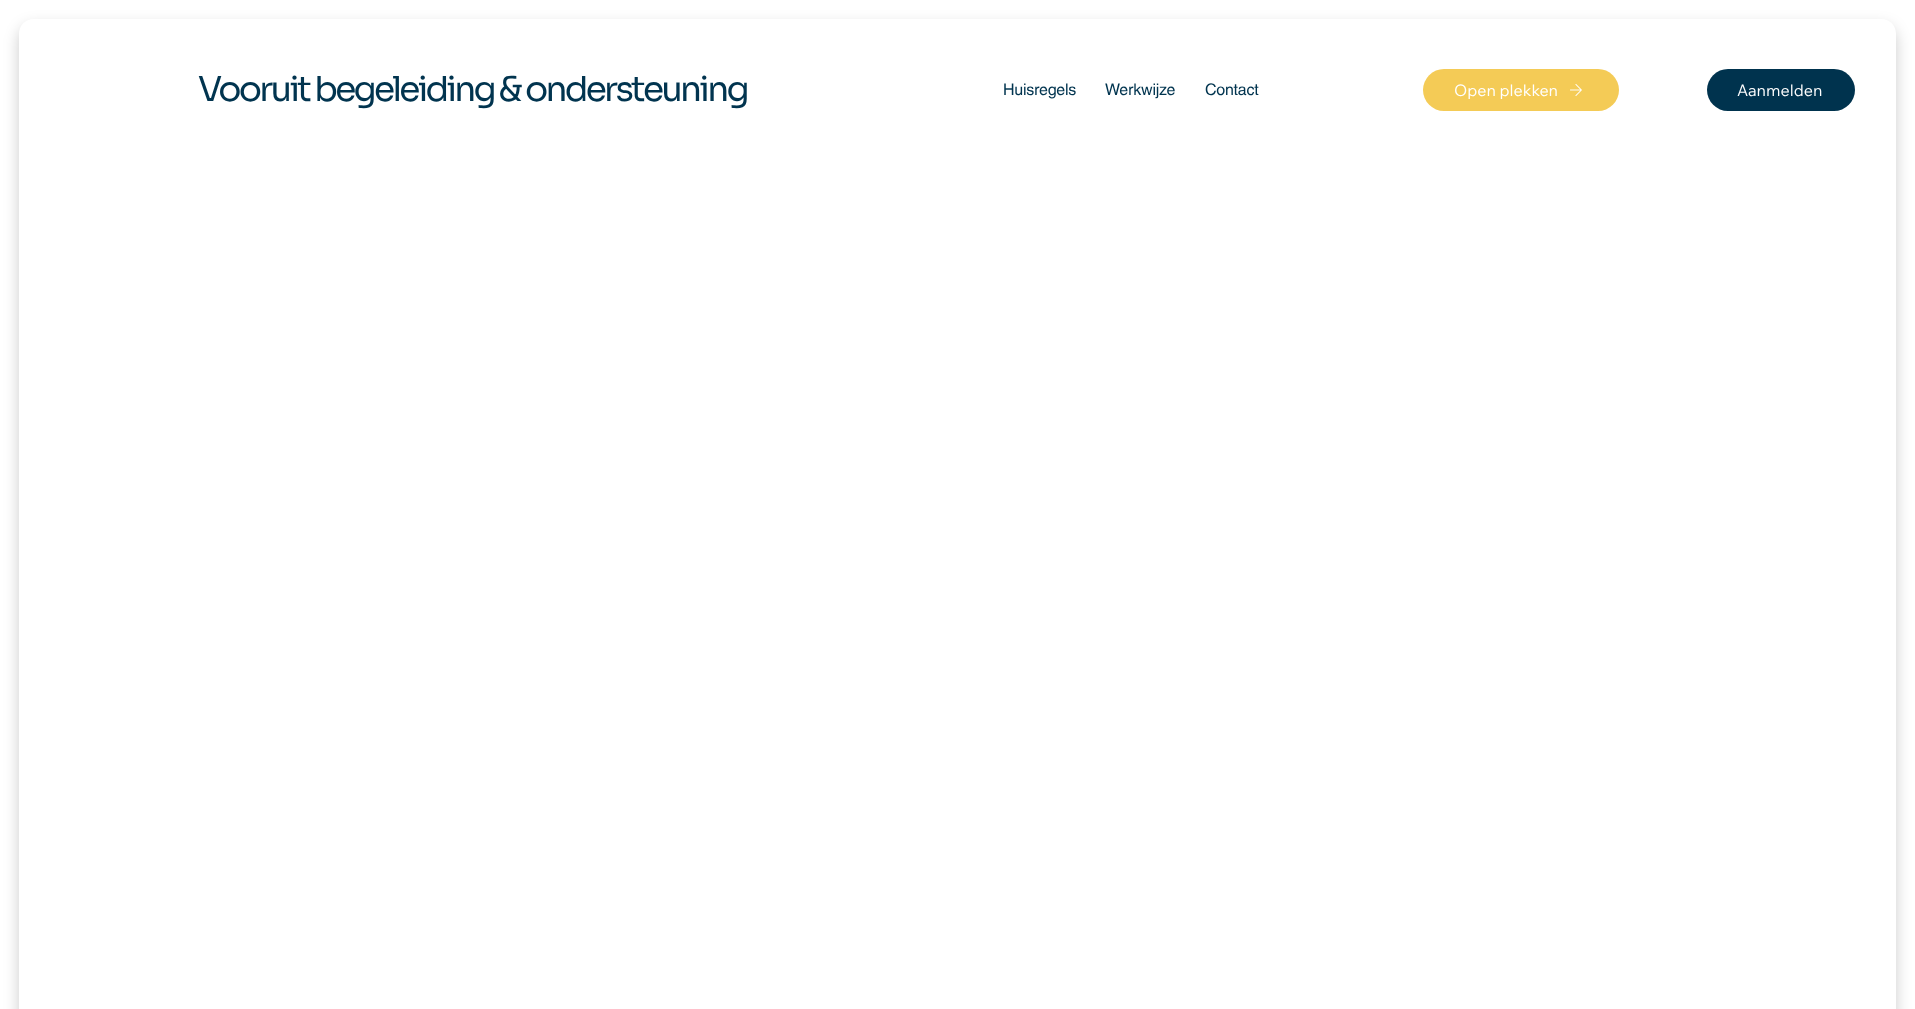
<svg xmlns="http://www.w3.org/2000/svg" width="1915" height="1009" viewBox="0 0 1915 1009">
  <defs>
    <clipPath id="clip1"><path d="M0 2H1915V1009H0ZM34 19H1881C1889.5 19 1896 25.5 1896 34V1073C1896 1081.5 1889.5 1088 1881 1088H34C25.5 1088 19 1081.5 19 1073V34C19 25.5 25.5 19 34 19Z" clip-rule="evenodd"/></clipPath>
  </defs>
  <rect width="100%" height="100%" fill="rgb(255,255,255)"/>
  <g clip-path="url(#clip1)">
    <rect x="19" y="26" width="1877" height="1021" rx="15" fill="rgba(0,0,0,0.2)" filter="blur(7.5px)"/>
  </g>
  <text x="198" y="101" font-family="Sora" font-size="34.4" letter-spacing="-2.75" fill="rgb(1,52,79)">Vooruit begeleiding &amp; ondersteuning</text>
  <g font-family="helvetica" font-size="16" letter-spacing="-0.25" fill="rgb(1,52,79)">
    <text x="1003" y="95">Huisregels</text>
    <text x="1105" y="95">Werkwijze</text>
    <text x="1205" y="95">Contact</text>
  </g>
  <rect x="1423" y="69" width="196" height="42" rx="21" fill="rgb(244,203,86)"/>
  <text x="1454" y="96" font-family="Wix Madefor Text" font-size="16" fill="rgb(255,255,255)">Open plekken</text>
  <image x="1570" y="84" width="12" height="12" href="pic1.png"/>
  <rect x="1707" y="69" width="148" height="42" rx="21" fill="rgb(0,51,78)"/>
  <text x="1737" y="96" font-family="Wix Madefor Text" font-size="16" fill="rgb(255,255,255)">Aanmelden</text>
</svg>
